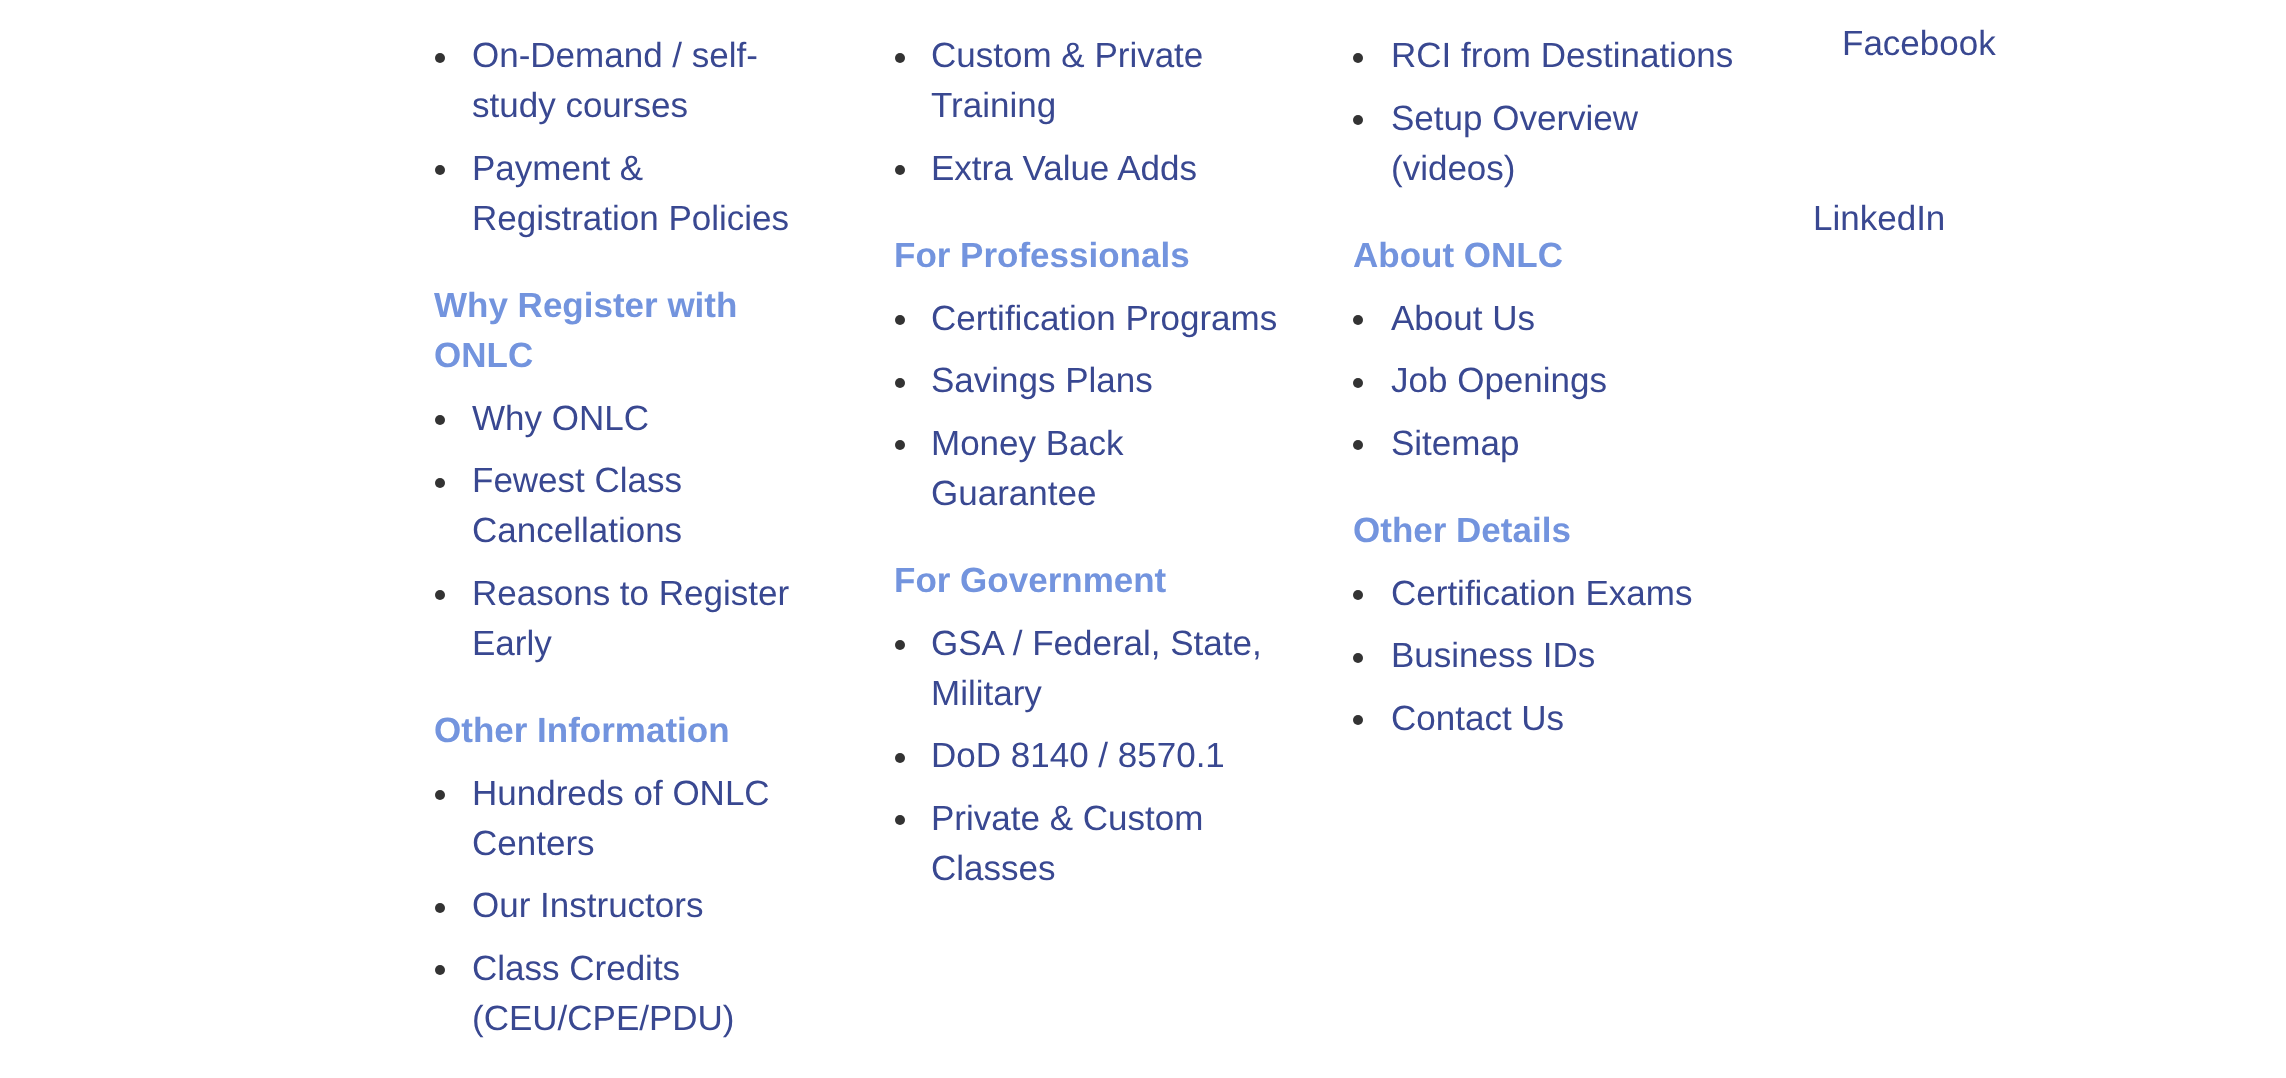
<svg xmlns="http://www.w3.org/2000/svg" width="2286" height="1078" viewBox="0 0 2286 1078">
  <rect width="100%" height="100%" fill="rgb(255,255,255)"/>
  <circle cx="440" cy="58" r="5" fill="rgb(51,51,51)"/>
  <g font-family="Liberation Sans" font-size="35" fill="rgb(57,72,145)">
    <text>
      <tspan x="472" y="67">On-Demand / self-</tspan>
      <tspan x="472" y="117">study courses</tspan>
    </text>
  </g>
  <circle cx="440" cy="170" r="5" fill="rgb(51,51,51)"/>
  <g font-family="Liberation Sans" font-size="35" fill="rgb(57,72,145)">
    <text>
      <tspan x="472" y="180">Payment &amp;</tspan>
      <tspan x="472" y="230">Registration Policies</tspan>
    </text>
  </g>
  <g font-family="Liberation Sans" font-size="35" font-weight="bold" fill="rgb(115,148,222)">
    <text>
      <tspan x="434" y="317">Why Register with</tspan>
      <tspan x="434" y="367">ONLC</tspan>
    </text>
  </g>
  <circle cx="440" cy="420" r="5" fill="rgb(51,51,51)"/>
  <text x="472" y="430" font-family="Liberation Sans" font-size="35" fill="rgb(57,72,145)">Why ONLC</text>
  <circle cx="440" cy="483" r="5" fill="rgb(51,51,51)"/>
  <g font-family="Liberation Sans" font-size="35" fill="rgb(57,72,145)">
    <text>
      <tspan x="472" y="492">Fewest Class</tspan>
      <tspan x="472" y="542">Cancellations</tspan>
    </text>
  </g>
  <circle cx="440" cy="595" r="5" fill="rgb(51,51,51)"/>
  <g font-family="Liberation Sans" font-size="35" fill="rgb(57,72,145)">
    <text>
      <tspan x="472" y="605">Reasons to Register</tspan>
      <tspan x="472" y="655">Early</tspan>
    </text>
  </g>
  <text x="434" y="742" font-family="Liberation Sans" font-size="35" font-weight="bold" fill="rgb(115,148,222)">Other Information</text>
  <circle cx="440" cy="795" r="5" fill="rgb(51,51,51)"/>
  <g font-family="Liberation Sans" font-size="35" fill="rgb(57,72,145)">
    <text>
      <tspan x="472" y="805">Hundreds of ONLC</tspan>
      <tspan x="472" y="855">Centers</tspan>
    </text>
  </g>
  <circle cx="440" cy="908" r="5" fill="rgb(51,51,51)"/>
  <text x="472" y="917" font-family="Liberation Sans" font-size="35" fill="rgb(57,72,145)">Our Instructors</text>
  <circle cx="440" cy="970" r="5" fill="rgb(51,51,51)"/>
  <g font-family="Liberation Sans" font-size="35" fill="rgb(57,72,145)">
    <text>
      <tspan x="472" y="980">Class Credits</tspan>
      <tspan x="472" y="1030">(CEU/CPE/PDU)</tspan>
    </text>
  </g>
  <circle cx="900" cy="58" r="5" fill="rgb(51,51,51)"/>
  <g font-family="Liberation Sans" font-size="35" fill="rgb(57,72,145)">
    <text>
      <tspan x="931" y="67">Custom &amp; Private</tspan>
      <tspan x="931" y="117">Training</tspan>
    </text>
  </g>
  <circle cx="900" cy="170" r="5" fill="rgb(51,51,51)"/>
  <text x="931" y="180" font-family="Liberation Sans" font-size="35" fill="rgb(57,72,145)">Extra Value Adds</text>
  <text x="894" y="267" font-family="Liberation Sans" font-size="35" font-weight="bold" fill="rgb(115,148,222)">For Professionals</text>
  <circle cx="900" cy="320" r="5" fill="rgb(51,51,51)"/>
  <text x="931" y="330" font-family="Liberation Sans" font-size="35" fill="rgb(57,72,145)">Certification Programs</text>
  <circle cx="900" cy="383" r="5" fill="rgb(51,51,51)"/>
  <text x="931" y="392" font-family="Liberation Sans" font-size="35" fill="rgb(57,72,145)">Savings Plans</text>
  <circle cx="900" cy="445" r="5" fill="rgb(51,51,51)"/>
  <g font-family="Liberation Sans" font-size="35" fill="rgb(57,72,145)">
    <text>
      <tspan x="931" y="455">Money Back</tspan>
      <tspan x="931" y="505">Guarantee</tspan>
    </text>
  </g>
  <text x="894" y="592" font-family="Liberation Sans" font-size="35" font-weight="bold" fill="rgb(115,148,222)">For Government</text>
  <circle cx="900" cy="645" r="5" fill="rgb(51,51,51)"/>
  <g font-family="Liberation Sans" font-size="35" fill="rgb(57,72,145)">
    <text>
      <tspan x="931" y="655">GSA / Federal, State,</tspan>
      <tspan x="931" y="705">Military</tspan>
    </text>
  </g>
  <circle cx="900" cy="758" r="5" fill="rgb(51,51,51)"/>
  <text x="931" y="767" font-family="Liberation Sans" font-size="35" fill="rgb(57,72,145)">DoD 8140 / 8570.1</text>
  <circle cx="900" cy="820" r="5" fill="rgb(51,51,51)"/>
  <g font-family="Liberation Sans" font-size="35" fill="rgb(57,72,145)">
    <text>
      <tspan x="931" y="830">Private &amp; Custom</tspan>
      <tspan x="931" y="880">Classes</tspan>
    </text>
  </g>
  <circle cx="1358" cy="58" r="5" fill="rgb(51,51,51)"/>
  <text x="1391" y="67" font-family="Liberation Sans" font-size="35" fill="rgb(57,72,145)">RCI from Destinations</text>
  <circle cx="1358" cy="120" r="5" fill="rgb(51,51,51)"/>
  <g font-family="Liberation Sans" font-size="35" fill="rgb(57,72,145)">
    <text>
      <tspan x="1391" y="130">Setup Overview</tspan>
      <tspan x="1391" y="180">(videos)</tspan>
    </text>
  </g>
  <text x="1353" y="267" font-family="Liberation Sans" font-size="35" font-weight="bold" fill="rgb(115,148,222)">About ONLC</text>
  <circle cx="1358" cy="320" r="5" fill="rgb(51,51,51)"/>
  <text x="1391" y="330" font-family="Liberation Sans" font-size="35" fill="rgb(57,72,145)">About Us</text>
  <circle cx="1358" cy="383" r="5" fill="rgb(51,51,51)"/>
  <text x="1391" y="392" font-family="Liberation Sans" font-size="35" fill="rgb(57,72,145)">Job Openings</text>
  <circle cx="1358" cy="445" r="5" fill="rgb(51,51,51)"/>
  <text x="1391" y="455" font-family="Liberation Sans" font-size="35" fill="rgb(57,72,145)">Sitemap</text>
  <text x="1353" y="542" font-family="Liberation Sans" font-size="35" font-weight="bold" fill="rgb(115,148,222)">Other Details</text>
  <circle cx="1358" cy="595" r="5" fill="rgb(51,51,51)"/>
  <text x="1391" y="605" font-family="Liberation Sans" font-size="35" fill="rgb(57,72,145)">Certification Exams</text>
  <circle cx="1358" cy="658" r="5" fill="rgb(51,51,51)"/>
  <text x="1391" y="667" font-family="Liberation Sans" font-size="35" fill="rgb(57,72,145)">Business IDs</text>
  <circle cx="1358" cy="720" r="5" fill="rgb(51,51,51)"/>
  <g font-family="Liberation Sans" font-size="35" fill="rgb(57,72,145)">
    <text x="1391" y="730">Contact Us</text>
    <text x="1842" y="55">Facebook</text>
    <text x="1813" y="230">LinkedIn</text>
  </g>
</svg>
